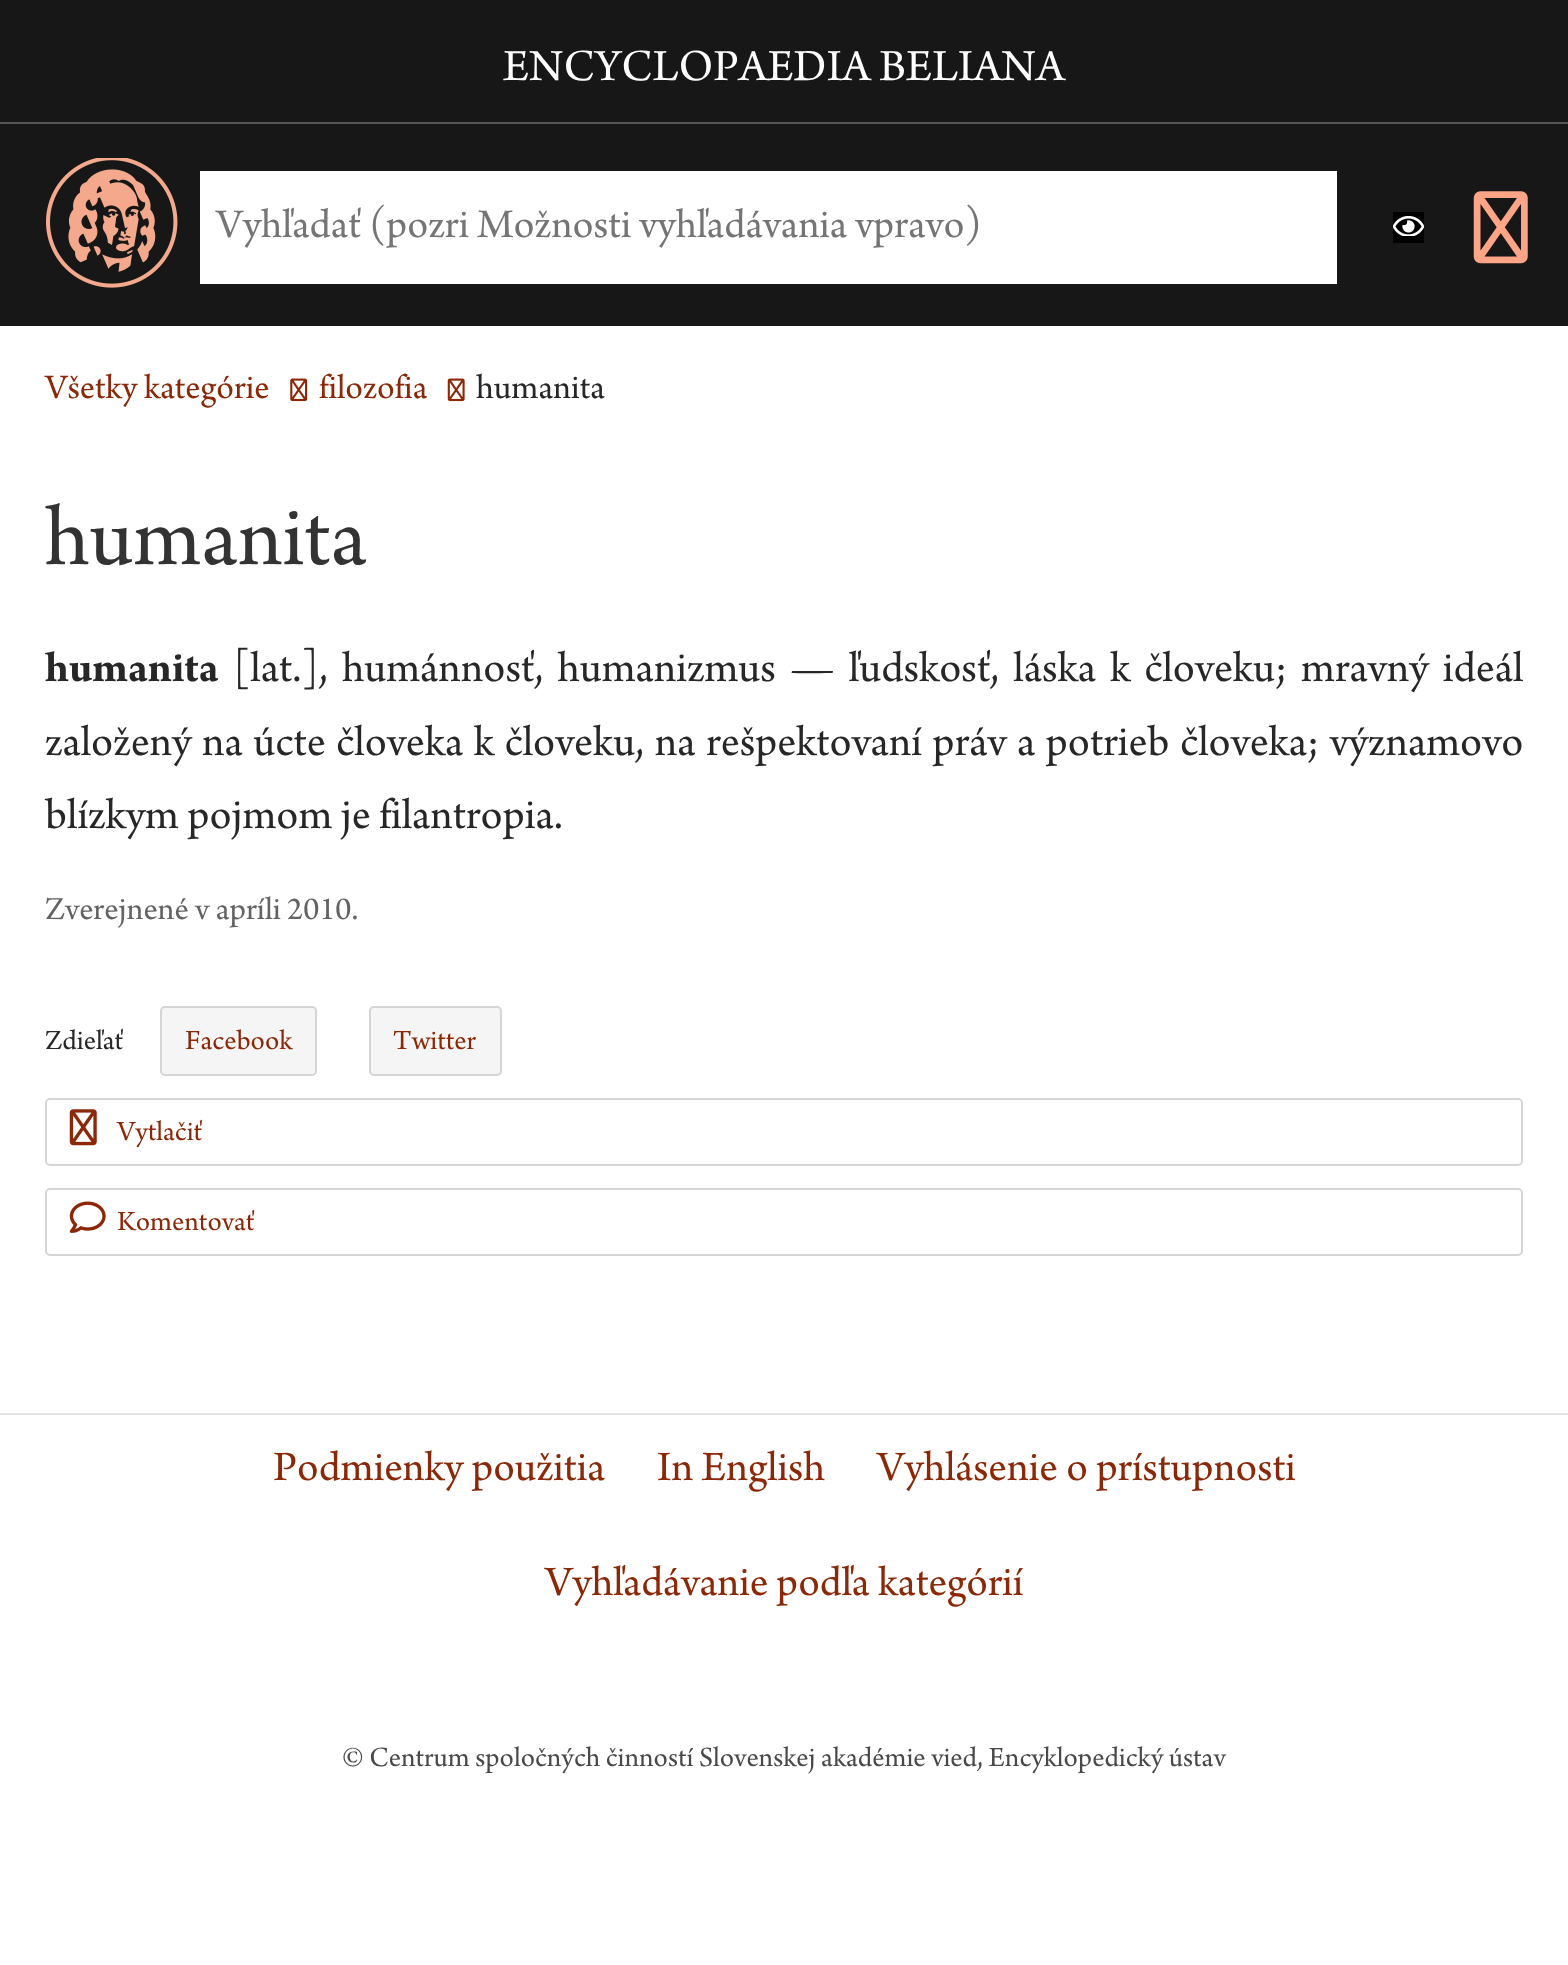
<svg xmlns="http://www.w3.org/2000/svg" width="1568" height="1965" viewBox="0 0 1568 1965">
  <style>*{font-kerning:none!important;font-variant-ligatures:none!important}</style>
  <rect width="100%" height="100%" fill="rgb(255,255,255)"/>
  <rect x="0" y="0" width="1568" height="326" fill="rgb(23,23,23)"/>
  <rect x="0" y="122" width="1568" height="2" fill="rgb(85,85,85)"/>
  <text x="503" y="80" font-family="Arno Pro" font-size="46.75" fill="rgb(255,255,255)">ENCYCLOPAEDIA BELIANA</text>
  <image x="46" y="158" width="132" height="130" href="pic1.png"/>
  <rect x="200" y="171" width="1137" height="113" fill="rgb(255,255,255)"/>
  <text x="216" y="237" font-family="Arno Pro" font-size="42.8" fill="rgb(117,117,117)">Vyhľadať (pozri Možnosti vyhľadávania vpravo)</text>
  <rect x="1393" y="212" width="31" height="31" fill="rgb(0,0,0)"/>
  <image x="1393" y="216" width="31" height="20" href="pic2.png"/>
  <image x="1473" y="191" width="55" height="73" href="pic3.png"/>
  <text x="45" y="398" font-family="Arno Pro" font-size="36" fill="rgb(138,40,7)">Všetky kategórie</text>
  <image x="290" y="378" width="18" height="24" href="pic4.png"/>
  <text x="319" y="398" font-family="Arno Pro" font-size="36" fill="rgb(138,40,7)">filozofia</text>
  <image x="447" y="378" width="18" height="24" href="pic5.png"/>
  <text x="476" y="398" font-family="Arno Pro" font-size="36" fill="rgb(40,39,39)">humanita</text>
  <text x="45" y="564" font-family="Arno Pro" font-size="90" fill="rgb(51,51,51)">humanita</text>
  <text x="45" y="681" font-family="Arno Pro" font-size="45" font-weight="bold" fill="rgb(40,39,39)">humanita</text>
  <g font-family="Arno Pro" font-size="45" fill="rgb(40,39,39)">
    <text x="233" y="681" word-spacing="5.5">[lat.], humánnosť, humanizmus — ľudskosť, láska k človeku; mravný ideál</text>
    <text x="45" y="755" word-spacing="2">založený na úcte človeka k človeku, na rešpektovaní práv</text>
    <text x="1017" y="755" word-spacing="2">a potrieb človeka; významovo</text>
    <text x="45" y="828">blízkym pojmom je filantropia.</text>
  </g>
  <text x="45" y="919" font-family="Arno Pro" font-size="33.75" fill="rgb(99,99,99)">Zverejnené v apríli 2010.</text>
  <text x="45" y="1049" font-family="Arno Pro" font-size="29.15" fill="rgb(40,39,39)">Zdieľať</text>
  <rect x="161" y="1007" width="155" height="68" rx="4" fill="rgb(245,245,245)" stroke="rgb(213,213,213)" stroke-width="2"/>
  <text x="185" y="1049" font-family="Arno Pro" font-size="29.15" fill="rgb(138,40,7)">Facebook</text>
  <rect x="370" y="1007" width="131" height="68" rx="4" fill="rgb(245,245,245)" stroke="rgb(213,213,213)" stroke-width="2"/>
  <text x="393" y="1049" font-family="Arno Pro" font-size="29.15" fill="rgb(138,40,7)">Twitter</text>
  <rect x="46" y="1099" width="1476" height="66" rx="4" fill="none" stroke="rgb(213,213,213)" stroke-width="2"/>
  <image x="69" y="1109" width="28" height="37" href="pic6.png"/>
  <text x="117" y="1140" font-family="Arno Pro" font-size="29.15" fill="rgb(138,40,7)">Vytlačiť</text>
  <rect x="46" y="1189" width="1476" height="66" rx="4" fill="none" stroke="rgb(213,213,213)" stroke-width="2"/>
  <image x="69" y="1201" width="37" height="32" href="pic7.png"/>
  <text x="117" y="1230" font-family="Arno Pro" font-size="29.15" fill="rgb(138,40,7)">Komentovať</text>
  <rect x="0" y="1413" width="1568" height="2" fill="rgb(228,228,228)"/>
  <g font-family="Arno Pro" font-size="44" fill="rgb(138,40,7)">
    <text x="273" y="1480">Podmienky použitia</text>
    <text x="657" y="1480">In English</text>
    <text x="877" y="1480">Vyhlásenie o prístupnosti</text>
    <text x="545" y="1595">Vyhľadávanie podľa kategórií</text>
  </g>
  <text x="342" y="1766" font-family="Arno Pro" font-size="29.15" fill="rgb(73,73,73)">© Centrum spoločných činností Slovenskej akadémie vied, Encyklopedický ústav</text>
</svg>
